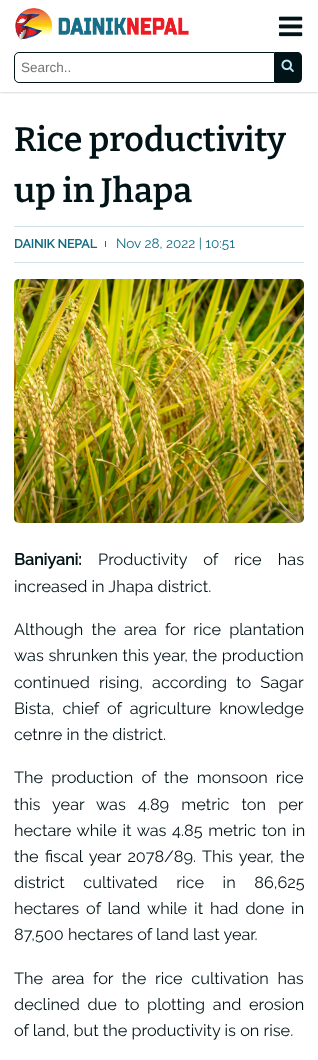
<svg xmlns="http://www.w3.org/2000/svg" width="318" height="1060" viewBox="0 0 318 1060">
  <defs>
    <clipPath id="clip1"><rect x="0" y="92" width="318" height="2"/></clipPath>
  </defs>
  <rect width="100%" height="100%" fill="rgb(255,255,255)"/>
  <g clip-path="url(#clip1)">
    <rect x="0" y="-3" width="318" height="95" fill="rgba(2,19,23,0.3)" filter="blur(1.5px)"/>
  </g>
  <image x="15" y="8" width="174" height="32" href="pic1.png"/>
  <image x="278" y="16" width="25" height="21" href="pic2.png"/>
  <path d="M19 52.5H274.5V82.5H19C16.5 82.5 14.5 80.5 14.5 78V57C14.5 54.5 16.5 52.5 19 52.5Z" fill="none" stroke="rgb(2,19,23)"/>
  <text x="21" y="72" font-family="Liberation Sans" font-size="13.5" fill="rgb(117,117,117)">Search..</text>
  <path d="M275 52H297C300 52 302 54 302 57V78C302 81 300 83 297 83H275Z" fill="rgb(2,19,23)"/>
  <image x="281" y="59" width="13" height="13" href="pic3.png"/>
  <g font-family="Bitter" font-size="34" font-weight="100" fill="rgb(2,19,23)">
    <text>
      <tspan x="14" y="151">Rice productivity</tspan>
      <tspan x="14" y="202">up in Jhapa</tspan>
    </text>
  </g>
  <rect x="14" y="226" width="290" height="1" fill="rgb(207,225,230)"/>
  <rect x="14" y="262" width="290" height="1" fill="rgb(207,225,230)"/>
  <text x="14" y="248" font-family="Raleway" font-size="12.25" font-weight="bold" fill="rgb(14,105,130)">DAINIK NEPAL</text>
  <rect x="105" y="241" width="1" height="6" fill="rgb(236,25,36)"/>
  <text x="116" y="248" font-family="Raleway" font-size="13.5" font-weight="100" fill="rgb(14,105,130)">Nov 28, 2022 | 10:51</text>
  <image x="14" y="279" width="290" height="244" href="pic4.png"/>
  <text x="14" y="565" font-family="Raleway" font-size="16.3" font-weight="bold" fill="rgb(2,19,23)">Baniyani:</text>
  <g font-family="Raleway" font-size="16.3" font-weight="100" fill="rgb(2,19,23)">
    <text x="98" y="565" word-spacing="12">Productivity of rice has</text>
    <text x="14" y="592">increased in Jhapa district.</text>
    <text>
      <tspan x="14" y="635" word-spacing="4">Although the area for rice plantation</tspan>
      <tspan x="14" y="661" word-spacing="0.5">was shrunken this year, the production</tspan>
      <tspan x="14" y="688" word-spacing="5">continued rising, according to Sagar</tspan>
      <tspan x="14" y="714" word-spacing="4">Bista, chief of agriculture knowledge</tspan>
      <tspan x="14" y="740">cetnre in the district.</tspan>
    </text>
    <text>
      <tspan x="14" y="783" word-spacing="4">The production of the monsoon rice</tspan>
      <tspan x="14" y="810" word-spacing="8">this year was 4.89 metric ton per</tspan>
      <tspan x="14" y="836" word-spacing="1.5">hectare while it was 4.85 metric ton in</tspan>
      <tspan x="14" y="862" word-spacing="2.25">the fiscal year 2078/89. This year, the</tspan>
      <tspan x="14" y="888" word-spacing="14.5">district cultivated rice in 86,625</tspan>
      <tspan x="14" y="914" word-spacing="2.75">hectares of land while it had done in</tspan>
      <tspan x="14" y="940">87,500 hectares of land last year.</tspan>
    </text>
    <text>
      <tspan x="14" y="984" word-spacing="4.5">The area for the rice cultivation has</tspan>
      <tspan x="14" y="1010" word-spacing="3.5">declined due to plotting and erosion</tspan>
      <tspan x="14" y="1036">of land, but the productivity is on rise.</tspan>
    </text>
  </g>
</svg>
